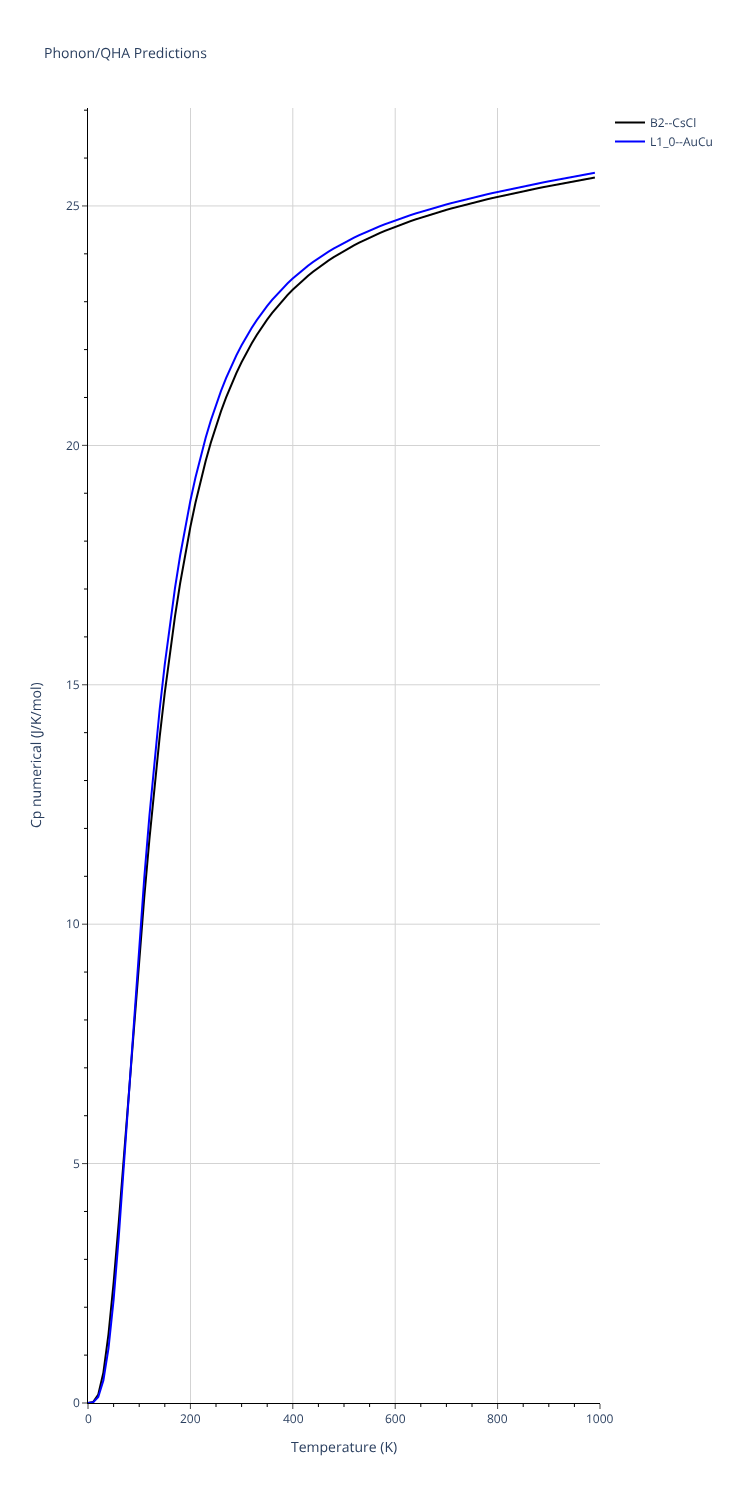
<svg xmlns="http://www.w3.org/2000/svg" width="738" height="1491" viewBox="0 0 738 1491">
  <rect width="100%" height="100%" fill="rgb(255,255,255)"/>
  <path d="M615 122.5H645" fill="none" stroke="rgb(0,0,0)" stroke-width="2"/>
  <path d="M615 141.5H645" fill="none" stroke="rgb(0,0,255)" stroke-width="2"/>
  <text x="44" y="58" font-family="Open Sans" font-size="14" fill="rgb(42,63,95)">Phonon/QHA Predictions</text>
  <g font-family="Open Sans" font-size="12" fill="rgb(42,63,95)">
    <text>
      <tspan x="650" y="127">B2--CsCl</tspan>
      <tspan x="650" y="146">L1_0--AuCu</tspan>
    </text>
  </g>
  <g font-family="Open Sans" font-size="14" fill="rgb(42,63,95)">
    <text x="41" y="828" transform="rotate(-90 41 828)">Cp numerical (J/K/mol)</text>
    <text x="291" y="1452">Temperature (K)</text>
  </g>
  <image x="82" y="108" width="519" height="1301" href="pic1.png"/>
  <g font-family="Open Sans" font-size="12" fill="rgb(42,63,95)">
    <text x="66" y="210">25</text>
    <text x="66" y="450">20</text>
    <text x="66" y="689">15</text>
    <text x="66" y="928">10</text>
    <text x="73" y="1168">5</text>
    <text x="73" y="1407">0</text>
    <text x="85" y="1423">0</text>
    <text x="180" y="1423">200</text>
    <text x="283" y="1423">400</text>
    <text x="385" y="1423">600</text>
    <text x="487" y="1423">800</text>
    <text x="586" y="1423">1000</text>
  </g>
</svg>
